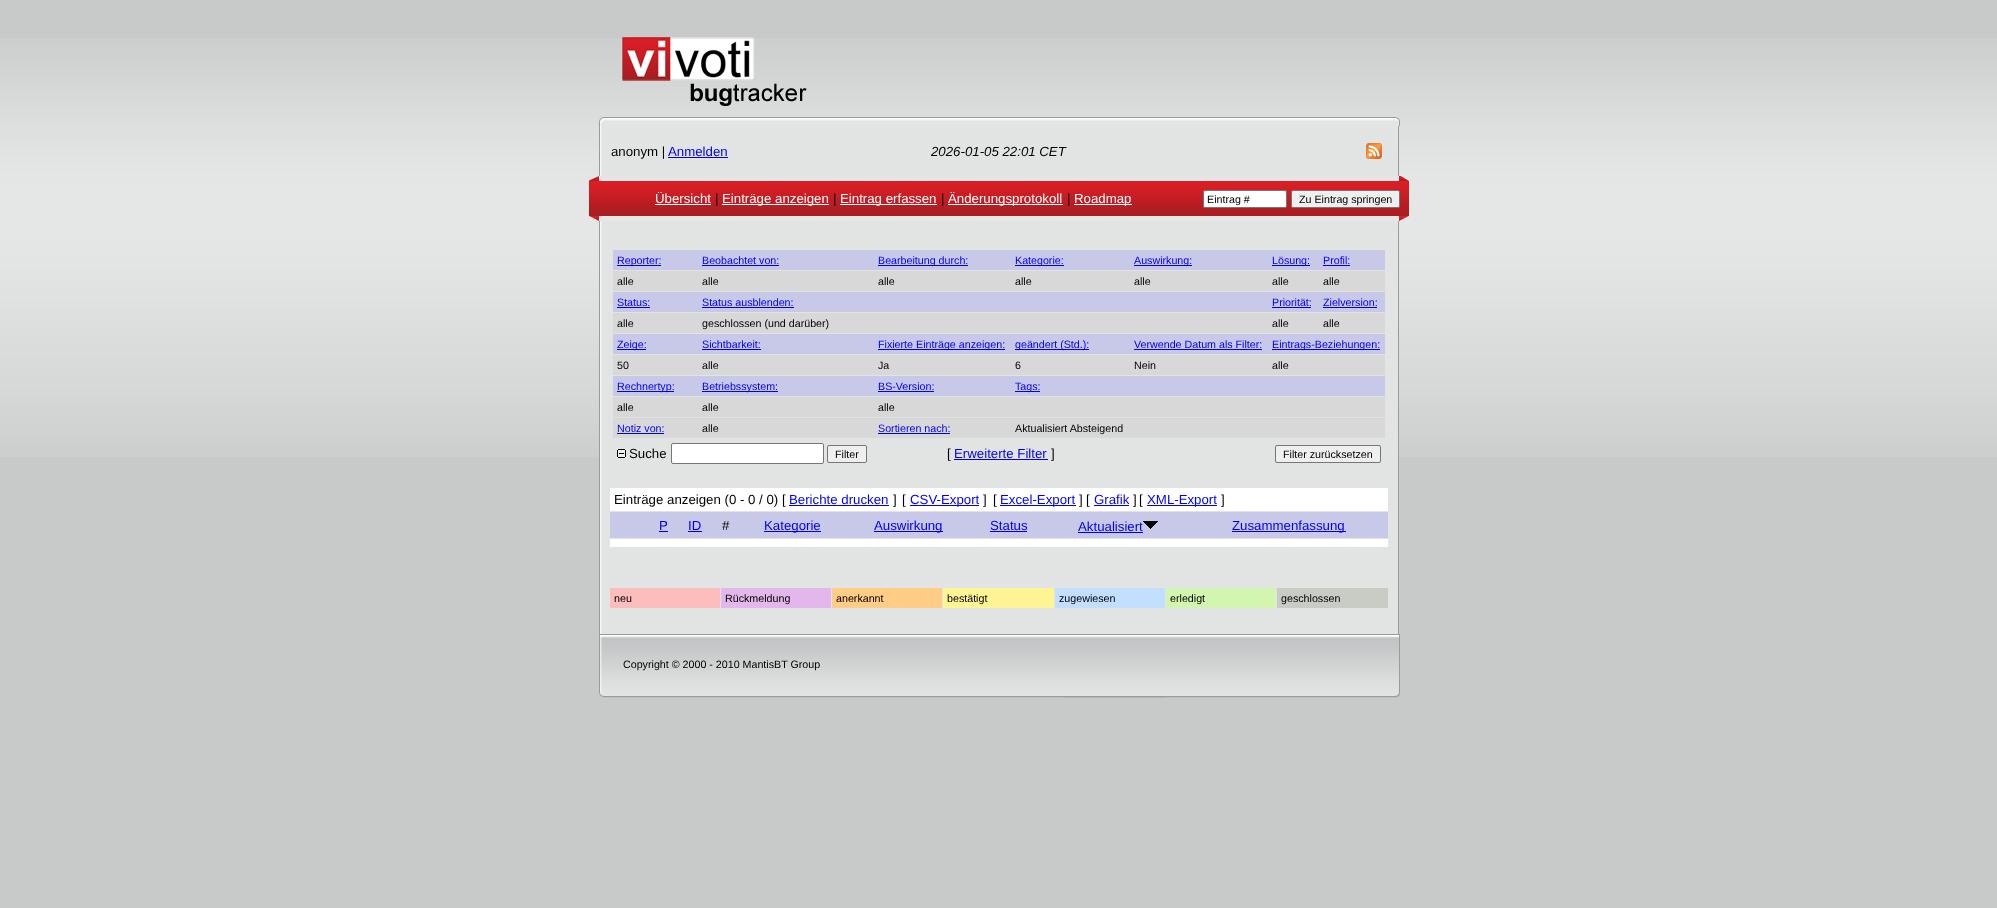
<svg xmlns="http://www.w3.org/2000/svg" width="1997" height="908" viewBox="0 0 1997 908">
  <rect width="100%" height="100%" fill="rgb(200,202,202)"/>
  <image x="0" y="38" width="1997" height="419" href="pic1.png"/>
  <image x="622" y="37" width="185" height="69" href="pic2.png"/>
  <image x="599" y="117" width="801" height="9" href="pic3.png"/>
  <image x="599" y="126" width="800" height="50" href="pic4.png"/>
  <text x="611" y="156" font-family="Liberation Sans" font-size="13.25" fill="rgb(0,0,0)">anonym |</text>
  <text x="668" y="156" font-family="Liberation Sans" font-size="13.25" fill="rgb(0,0,238)">Anmelden</text>
  <rect x="668" y="157" width="60" height="1" fill="rgb(0,0,238)"/>
  <text x="931" y="156" font-family="Liberation Sans" font-size="13.25" font-style="italic" fill="rgb(0,0,0)">2026-01-05 22:01 CET</text>
  <image x="1366" y="143" width="16" height="16" href="pic5.png"/>
  <image x="589" y="176" width="820" height="45" href="pic6.png"/>
  <text x="655" y="203" font-family="Liberation Sans" font-size="13.25" fill="rgb(255,255,255)">Übersicht</text>
  <rect x="655" y="204" width="56" height="1" fill="rgb(255,255,255)"/>
  <text x="715" y="203" font-family="Liberation Sans" font-size="13.25" fill="rgb(0,0,0)">|</text>
  <rect x="722" y="204" width="107" height="1" fill="rgb(255,255,255)"/>
  <text x="722" y="203" font-family="Liberation Sans" font-size="13.25" fill="rgb(255,255,255)">Einträge anzeigen</text>
  <text x="833" y="203" font-family="Liberation Sans" font-size="13.25" fill="rgb(0,0,0)">|</text>
  <rect x="840" y="204" width="97" height="1" fill="rgb(255,255,255)"/>
  <text x="840" y="203" font-family="Liberation Sans" font-size="13.25" fill="rgb(255,255,255)">Eintrag erfassen</text>
  <text x="941" y="203" font-family="Liberation Sans" font-size="13.25" fill="rgb(0,0,0)">|</text>
  <rect x="948" y="204" width="115" height="1" fill="rgb(255,255,255)"/>
  <text x="948" y="203" font-family="Liberation Sans" font-size="13.25" fill="rgb(255,255,255)">Änderungsprotokoll</text>
  <text x="1067" y="203" font-family="Liberation Sans" font-size="13.25" fill="rgb(0,0,0)">|</text>
  <rect x="1074" y="204" width="58" height="1" fill="rgb(255,255,255)"/>
  <text x="1074" y="203" font-family="Liberation Sans" font-size="13.25" fill="rgb(255,255,255)">Roadmap</text>
  <rect x="1203.5" y="190.5" width="83" height="17" rx="1.5" fill="rgb(255,255,255)" stroke="rgb(118,118,118)"/>
  <text x="1207" y="203" font-family="Liberation Sans" font-size="10.7" fill="rgb(0,0,0)">Eintrag #</text>
  <rect x="1291.5" y="190.5" width="108" height="17" rx="1.5" fill="rgb(239,239,239)" stroke="rgb(118,118,118)"/>
  <text x="1299" y="203" font-family="Liberation Sans" font-size="10.7" fill="rgb(0,0,0)">Zu Eintrag springen</text>
  <image x="599" y="221" width="800" height="413" href="pic7.png"/>
  <rect x="613" y="250" width="772" height="20" fill="rgb(200,200,232)"/>
  <rect x="617" y="265" width="44" height="1" fill="rgb(0,0,238)"/>
  <g font-family="Liberation Sans" font-size="10.7" fill="rgb(0,0,238)">
    <text x="617" y="264">Reporter:</text>
    <text x="702" y="264">Beobachtet von:</text>
  </g>
  <rect x="702" y="265" width="77" height="1" fill="rgb(0,0,238)"/>
  <rect x="878" y="265" width="90" height="1" fill="rgb(0,0,238)"/>
  <text x="878" y="264" font-family="Liberation Sans" font-size="10.7" fill="rgb(0,0,238)">Bearbeitung durch:</text>
  <rect x="1015" y="265" width="49" height="1" fill="rgb(0,0,238)"/>
  <text x="1015" y="264" font-family="Liberation Sans" font-size="10.7" fill="rgb(0,0,238)">Kategorie:</text>
  <rect x="1134" y="265" width="58" height="1" fill="rgb(0,0,238)"/>
  <text x="1134" y="264" font-family="Liberation Sans" font-size="10.7" fill="rgb(0,0,238)">Auswirkung:</text>
  <rect x="1272" y="265" width="38" height="1" fill="rgb(0,0,238)"/>
  <g font-family="Liberation Sans" font-size="10.7" fill="rgb(0,0,238)">
    <text x="1272" y="264">Lösung:</text>
    <text x="1323" y="264">Profil:</text>
  </g>
  <rect x="1323" y="265" width="27" height="1" fill="rgb(0,0,238)"/>
  <rect x="613" y="271" width="772" height="20" fill="rgb(216,216,216)"/>
  <g font-family="Liberation Sans" font-size="10.7" fill="rgb(0,0,0)">
    <text x="617" y="285">alle</text>
    <text x="702" y="285">alle</text>
    <text x="878" y="285">alle</text>
    <text x="1015" y="285">alle</text>
    <text x="1134" y="285">alle</text>
    <text x="1272" y="285">alle</text>
    <text x="1323" y="285">alle</text>
  </g>
  <rect x="613" y="292" width="772" height="20" fill="rgb(200,200,232)"/>
  <text x="617" y="306" font-family="Liberation Sans" font-size="10.7" fill="rgb(0,0,238)">Status:</text>
  <rect x="617" y="307" width="33" height="1" fill="rgb(0,0,238)"/>
  <text x="702" y="306" font-family="Liberation Sans" font-size="10.7" fill="rgb(0,0,238)">Status ausblenden:</text>
  <rect x="702" y="307" width="92" height="1" fill="rgb(0,0,238)"/>
  <text x="1272" y="306" font-family="Liberation Sans" font-size="10.7" fill="rgb(0,0,238)">Priorität:</text>
  <rect x="1272" y="307" width="39" height="1" fill="rgb(0,0,238)"/>
  <text x="1323" y="306" font-family="Liberation Sans" font-size="10.7" fill="rgb(0,0,238)">Zielversion:</text>
  <rect x="1323" y="307" width="54" height="1" fill="rgb(0,0,238)"/>
  <rect x="613" y="313" width="772" height="20" fill="rgb(216,216,216)"/>
  <g font-family="Liberation Sans" font-size="10.7" fill="rgb(0,0,0)">
    <text x="617" y="327">alle</text>
    <text x="702" y="327">geschlossen (und darüber)</text>
    <text x="1272" y="327">alle</text>
    <text x="1323" y="327">alle</text>
  </g>
  <rect x="613" y="334" width="772" height="20" fill="rgb(200,200,232)"/>
  <rect x="617" y="349" width="29" height="1" fill="rgb(0,0,238)"/>
  <g font-family="Liberation Sans" font-size="10.7" fill="rgb(0,0,238)">
    <text x="617" y="348">Zeige:</text>
    <text x="702" y="348">Sichtbarkeit:</text>
  </g>
  <rect x="702" y="349" width="59" height="1" fill="rgb(0,0,238)"/>
  <rect x="878" y="349" width="127" height="1" fill="rgb(0,0,238)"/>
  <text x="878" y="348" font-family="Liberation Sans" font-size="10.7" fill="rgb(0,0,238)">Fixierte Einträge anzeigen:</text>
  <rect x="1015" y="349" width="74" height="1" fill="rgb(0,0,238)"/>
  <g font-family="Liberation Sans" font-size="10.7" fill="rgb(0,0,238)">
    <text x="1015" y="348">geändert (Std.):</text>
    <text x="1134" y="348">Verwende Datum als Filter:</text>
  </g>
  <rect x="1134" y="349" width="128" height="1" fill="rgb(0,0,238)"/>
  <rect x="1272" y="349" width="108" height="1" fill="rgb(0,0,238)"/>
  <text x="1272" y="348" font-family="Liberation Sans" font-size="10.7" fill="rgb(0,0,238)">Eintrags-Beziehungen:</text>
  <rect x="613" y="355" width="772" height="20" fill="rgb(216,216,216)"/>
  <g font-family="Liberation Sans" font-size="10.7" fill="rgb(0,0,0)">
    <text x="617" y="369">50</text>
    <text x="702" y="369">alle</text>
    <text x="878" y="369">Ja</text>
    <text x="1015" y="369">6</text>
    <text x="1134" y="369">Nein</text>
    <text x="1272" y="369">alle</text>
  </g>
  <rect x="613" y="376" width="772" height="20" fill="rgb(200,200,232)"/>
  <rect x="617" y="391" width="57" height="1" fill="rgb(0,0,238)"/>
  <text x="617" y="390" font-family="Liberation Sans" font-size="10.7" fill="rgb(0,0,238)">Rechnertyp:</text>
  <rect x="702" y="391" width="76" height="1" fill="rgb(0,0,238)"/>
  <g font-family="Liberation Sans" font-size="10.7" fill="rgb(0,0,238)">
    <text x="702" y="390">Betriebssystem:</text>
    <text x="878" y="390">BS-Version:</text>
  </g>
  <rect x="878" y="391" width="56" height="1" fill="rgb(0,0,238)"/>
  <rect x="1015" y="391" width="25" height="1" fill="rgb(0,0,238)"/>
  <text x="1015" y="390" font-family="Liberation Sans" font-size="10.7" fill="rgb(0,0,238)">Tags:</text>
  <rect x="613" y="397" width="772" height="20" fill="rgb(216,216,216)"/>
  <g font-family="Liberation Sans" font-size="10.7" fill="rgb(0,0,0)">
    <text x="617" y="411">alle</text>
    <text x="702" y="411">alle</text>
    <text x="878" y="411">alle</text>
  </g>
  <rect x="613" y="418" width="772" height="20" fill="rgb(216,216,216)"/>
  <text x="617" y="432" font-family="Liberation Sans" font-size="10.7" fill="rgb(0,0,238)">Notiz von:</text>
  <rect x="617" y="433" width="47" height="1" fill="rgb(0,0,238)"/>
  <text x="702" y="432" font-family="Liberation Sans" font-size="10.7" fill="rgb(0,0,0)">alle</text>
  <text x="878" y="432" font-family="Liberation Sans" font-size="10.7" fill="rgb(0,0,238)">Sortieren nach:</text>
  <rect x="878" y="433" width="72" height="1" fill="rgb(0,0,238)"/>
  <text x="1015" y="432" font-family="Liberation Sans" font-size="10.7" fill="rgb(0,0,0)">Aktualisiert Absteigend</text>
  <image x="617" y="449" width="9" height="9" href="pic8.png"/>
  <text x="629" y="458" font-family="Liberation Sans" font-size="13.25" fill="rgb(0,0,0)">Suche</text>
  <rect x="671.5" y="443.5" width="152" height="20" rx="1.5" fill="rgb(255,255,255)" stroke="rgb(118,118,118)"/>
  <rect x="827.5" y="445.5" width="39" height="17" rx="1.5" fill="rgb(239,239,239)" stroke="rgb(118,118,118)"/>
  <text x="835" y="458" font-family="Liberation Sans" font-size="10.7" fill="rgb(0,0,0)">Filter</text>
  <text x="947" y="458" font-family="Liberation Sans" font-size="13.25" fill="rgb(0,0,0)">[</text>
  <text x="954" y="458" font-family="Liberation Sans" font-size="13.25" fill="rgb(0,0,238)">Erweiterte Filter</text>
  <rect x="954" y="459" width="94" height="1" fill="rgb(0,0,238)"/>
  <text x="1051" y="458" font-family="Liberation Sans" font-size="13.25" fill="rgb(0,0,0)">]</text>
  <rect x="1275.5" y="445.5" width="105" height="17" rx="1.5" fill="rgb(239,239,239)" stroke="rgb(118,118,118)"/>
  <text x="1283" y="458" font-family="Liberation Sans" font-size="10.7" fill="rgb(0,0,0)">Filter zurücksetzen</text>
  <rect x="610" y="488" width="778" height="23" fill="rgb(255,255,255)"/>
  <g font-family="Liberation Sans" font-size="13.25" fill="rgb(0,0,0)">
    <text x="614" y="504">Einträge anzeigen (0 - 0 / 0)</text>
    <text x="782" y="504">[</text>
  </g>
  <text x="789" y="504" font-family="Liberation Sans" font-size="13.25" fill="rgb(0,0,238)">Berichte drucken</text>
  <rect x="789" y="505" width="100" height="1" fill="rgb(0,0,238)"/>
  <g font-family="Liberation Sans" font-size="13.25" fill="rgb(0,0,0)">
    <text x="893" y="504">]</text>
    <text x="902" y="504">[</text>
  </g>
  <rect x="910" y="505" width="69" height="1" fill="rgb(0,0,238)"/>
  <text x="910" y="504" font-family="Liberation Sans" font-size="13.25" fill="rgb(0,0,238)">CSV-Export</text>
  <g font-family="Liberation Sans" font-size="13.25" fill="rgb(0,0,0)">
    <text x="983" y="504">]</text>
    <text x="993" y="504">[</text>
  </g>
  <rect x="1000" y="505" width="76" height="1" fill="rgb(0,0,238)"/>
  <text x="1000" y="504" font-family="Liberation Sans" font-size="13.25" fill="rgb(0,0,238)">Excel-Export</text>
  <g font-family="Liberation Sans" font-size="13.25" fill="rgb(0,0,0)">
    <text x="1079" y="504">]</text>
    <text x="1086" y="504">[</text>
  </g>
  <text x="1094" y="504" font-family="Liberation Sans" font-size="13.25" fill="rgb(0,0,238)">Grafik</text>
  <rect x="1094" y="505" width="35" height="1" fill="rgb(0,0,238)"/>
  <g font-family="Liberation Sans" font-size="13.25" fill="rgb(0,0,0)">
    <text x="1133" y="504">]</text>
    <text x="1139" y="504">[</text>
  </g>
  <rect x="1147" y="505" width="70" height="1" fill="rgb(0,0,238)"/>
  <text x="1147" y="504" font-family="Liberation Sans" font-size="13.25" fill="rgb(0,0,238)">XML-Export</text>
  <text x="1221" y="504" font-family="Liberation Sans" font-size="13.25" fill="rgb(0,0,0)">]</text>
  <rect x="610" y="512" width="778" height="26" fill="rgb(200,200,232)"/>
  <text x="659" y="530" font-family="Liberation Sans" font-size="13.25" fill="rgb(0,0,238)">P</text>
  <rect x="659" y="531" width="9" height="1" fill="rgb(0,0,238)"/>
  <text x="688" y="530" font-family="Liberation Sans" font-size="13.25" fill="rgb(0,0,238)">ID</text>
  <rect x="688" y="531" width="14" height="1" fill="rgb(0,0,238)"/>
  <text x="722" y="530" font-family="Liberation Sans" font-size="13.25" fill="rgb(0,0,0)">#</text>
  <rect x="764" y="531" width="57" height="1" fill="rgb(0,0,238)"/>
  <text x="764" y="530" font-family="Liberation Sans" font-size="13.25" fill="rgb(0,0,238)">Kategorie</text>
  <rect x="874" y="531" width="69" height="1" fill="rgb(0,0,238)"/>
  <g font-family="Liberation Sans" font-size="13.25" fill="rgb(0,0,238)">
    <text x="874" y="530">Auswirkung</text>
    <text x="990" y="530">Status</text>
  </g>
  <rect x="990" y="531" width="37" height="1" fill="rgb(0,0,238)"/>
  <text x="1078" y="531" font-family="Liberation Sans" font-size="13.25" fill="rgb(0,0,238)">Aktualisiert</text>
  <rect x="1078" y="532" width="65" height="1" fill="rgb(0,0,238)"/>
  <image x="1143" y="521" width="15" height="8" href="pic9.png"/>
  <rect x="1232" y="531" width="114" height="1" fill="rgb(0,0,238)"/>
  <text x="1232" y="530" font-family="Liberation Sans" font-size="13.25" fill="rgb(0,0,238)">Zusammenfassung</text>
  <rect x="610" y="539" width="778" height="8" fill="rgb(255,255,255)"/>
  <rect x="610" y="588" width="110" height="20" fill="rgb(252,189,189)"/>
  <text x="614" y="602" font-family="Liberation Sans" font-size="10.7" fill="rgb(0,0,0)">neu</text>
  <rect x="721" y="588" width="110" height="20" fill="rgb(227,183,235)"/>
  <text x="725" y="602" font-family="Liberation Sans" font-size="10.7" fill="rgb(0,0,0)">Rückmeldung</text>
  <rect x="832" y="588" width="110" height="20" fill="rgb(255,205,133)"/>
  <text x="836" y="602" font-family="Liberation Sans" font-size="10.7" fill="rgb(0,0,0)">anerkannt</text>
  <rect x="943" y="588" width="111" height="20" fill="rgb(255,244,148)"/>
  <text x="947" y="602" font-family="Liberation Sans" font-size="10.7" fill="rgb(0,0,0)">bestätigt</text>
  <rect x="1055" y="588" width="110" height="20" fill="rgb(194,223,255)"/>
  <text x="1059" y="602" font-family="Liberation Sans" font-size="10.7" fill="rgb(0,0,0)">zugewiesen</text>
  <rect x="1166" y="588" width="110" height="20" fill="rgb(210,245,176)"/>
  <text x="1170" y="602" font-family="Liberation Sans" font-size="10.7" fill="rgb(0,0,0)">erledigt</text>
  <rect x="1277" y="588" width="111" height="20" fill="rgb(201,204,196)"/>
  <text x="1281" y="602" font-family="Liberation Sans" font-size="10.7" fill="rgb(0,0,0)">geschlossen</text>
  <image x="599" y="634" width="801" height="64" href="pic10.png"/>
  <text x="623" y="668" font-family="Liberation Sans" font-size="10.7" fill="rgb(0,0,0)">Copyright © 2000 - 2010 MantisBT Group</text>
</svg>
